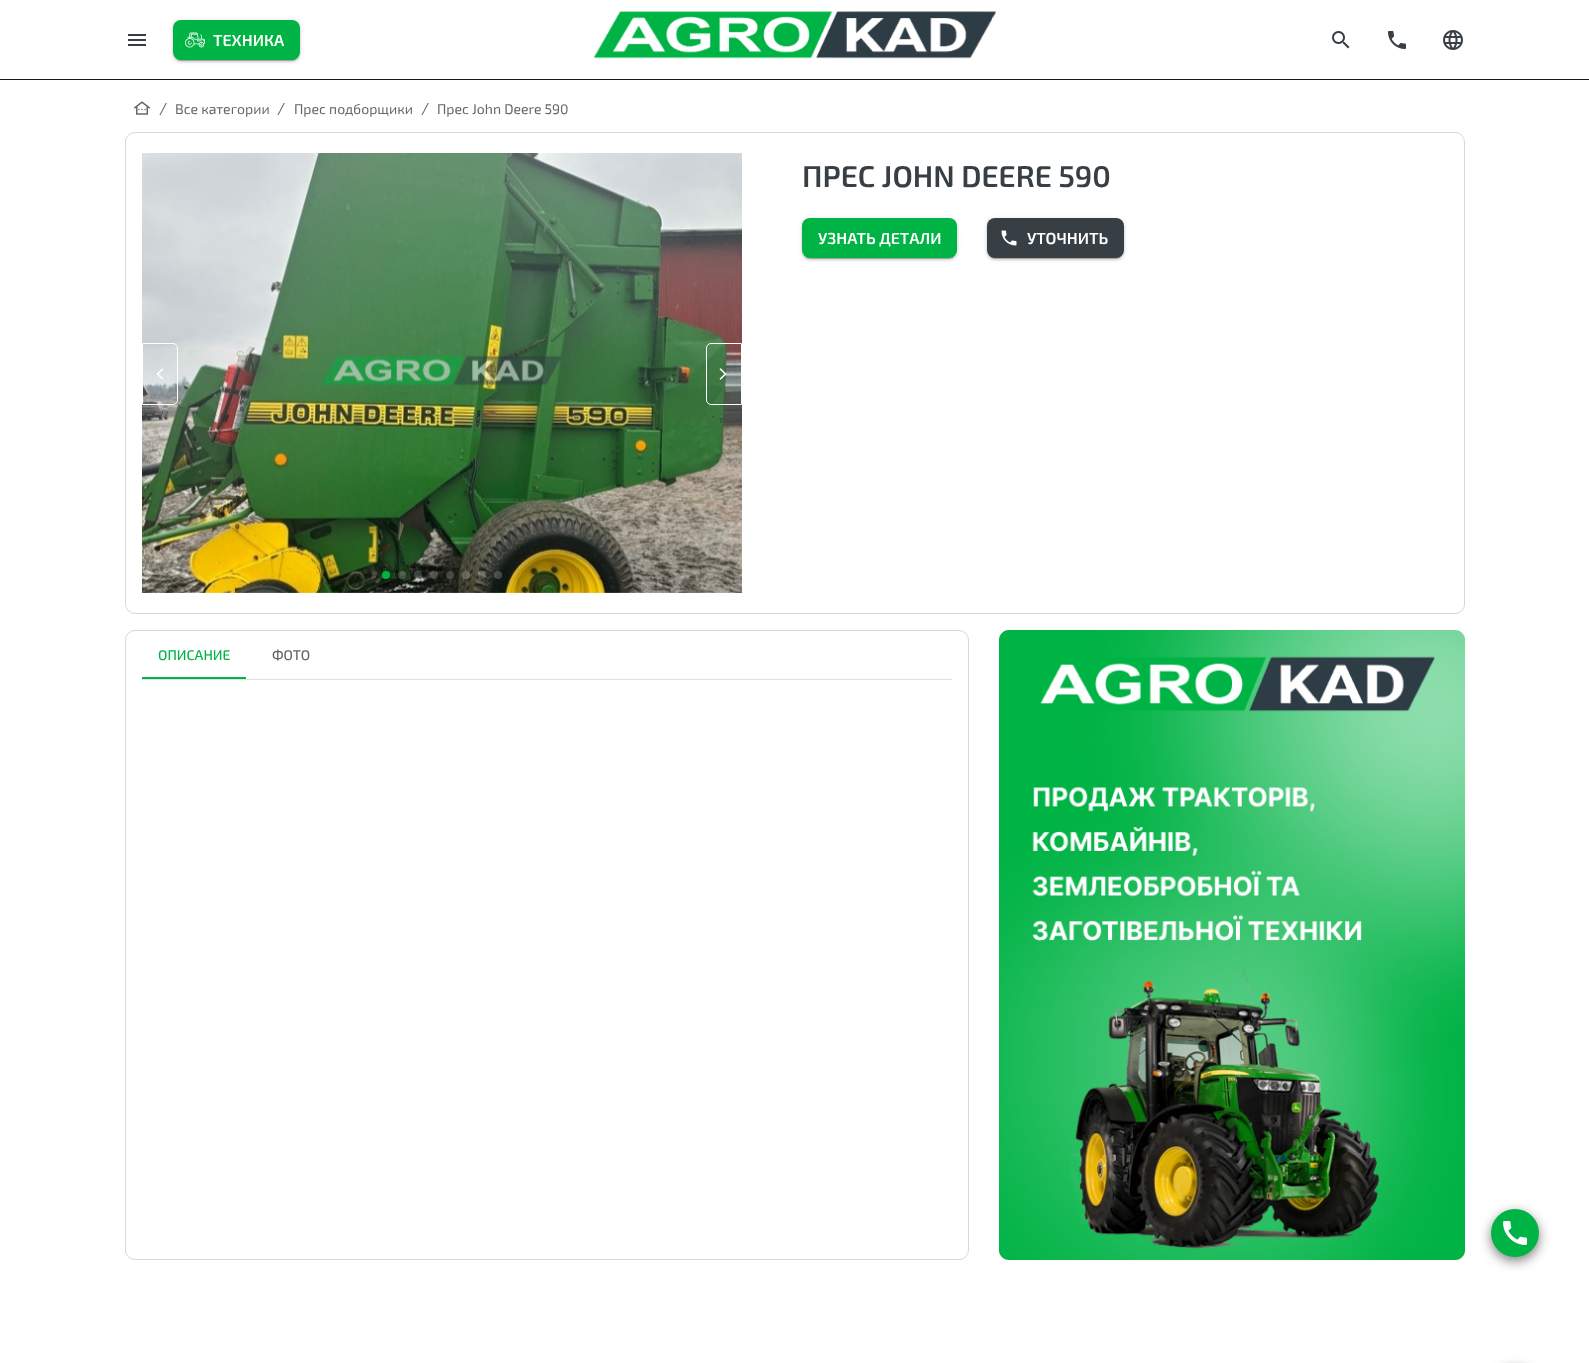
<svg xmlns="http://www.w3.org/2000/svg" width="1589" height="1363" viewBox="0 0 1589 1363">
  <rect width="100%" height="100%" fill="rgb(255,255,255)"/>
  <rect x="0" y="79" width="1589" height="1" fill="rgb(27,27,26)"/>
  <image x="128" y="34" width="18" height="12" href="pic1.png"/>
  <rect x="173" y="21" width="127" height="40" rx="8" fill="rgba(0,0,0,0.12)" filter="blur(2.5px)"/>
  <rect x="173" y="22" width="127" height="40" rx="8" fill="rgba(0,0,0,0.14)" filter="blur(1px)"/>
  <rect x="175" y="25" width="123" height="36" rx="6" fill="rgba(0,0,0,0.2)" filter="blur(0.5px)"/>
  <rect x="173" y="20" width="127" height="40" rx="8" fill="rgb(0,179,69)"/>
  <image x="185" y="32" width="20" height="16" href="pic2.png"/>
  <text x="213" y="46" font-family="'Exo 2'" font-size="16" font-weight="600" fill="rgb(255,255,255)">ТЕХНИКА</text>
  <image x="593" y="11" width="403" height="48" href="pic3.png"/>
  <image x="1332" y="31" width="18" height="18" href="pic4.png"/>
  <image x="1388" y="31" width="18" height="18" href="pic5.png"/>
  <image x="1443" y="30" width="20" height="20" href="pic6.png"/>
  <image x="133" y="101" width="18" height="14" href="pic7.png"/>
  <text x="159" y="114" font-family="'Exo 2'" font-size="16" fill="rgb(102,102,102)">/</text>
  <text x="175" y="114" font-family="'Exo 2'" font-size="14" fill="rgb(102,102,102)">Все категории</text>
  <text x="277" y="114" font-family="'Exo 2'" font-size="16" fill="rgb(102,102,102)">/</text>
  <text x="294" y="114" font-family="'Exo 2'" font-size="14" fill="rgb(102,102,102)">Прес подборщики</text>
  <text x="421" y="114" font-family="'Exo 2'" font-size="16" fill="rgb(102,102,102)">/</text>
  <text x="437" y="114" font-family="'Exo 2'" font-size="14" fill="rgb(102,102,102)">Прес John Deere 590</text>
  <rect x="125.5" y="132.5" width="1339" height="481" rx="9.5" fill="none" stroke="rgb(214,214,214)"/>
  <image x="142" y="153" width="600" height="440" href="pic8.png"/>
  <circle cx="386" cy="575" r="4" fill="rgb(0,179,69)"/>
  <circle cx="402" cy="575" r="4" fill="rgba(255,255,255,0.2)"/>
  <circle cx="418" cy="575" r="4" fill="rgba(255,255,255,0.2)"/>
  <circle cx="434" cy="575" r="4" fill="rgba(255,255,255,0.2)"/>
  <circle cx="450" cy="575" r="4" fill="rgba(255,255,255,0.2)"/>
  <circle cx="466" cy="575" r="4" fill="rgba(255,255,255,0.2)"/>
  <circle cx="482" cy="575" r="4" fill="rgba(255,255,255,0.2)"/>
  <circle cx="498" cy="575" r="4" fill="rgba(255,255,255,0.2)"/>
  <path d="M142.5 343.5H173C175.5 343.5 177.5 345.5 177.5 348V400C177.5 402.5 175.5 404.5 173 404.5H142.5Z" fill="none" stroke="rgb(255,255,255)"/>
  <image x="156" y="368" width="8" height="12" href="pic9.png"/>
  <path d="M711 343.5H741.5V404.5H711C708.5 404.5 706.5 402.5 706.5 400V348C706.5 345.5 708.5 343.5 711 343.5Z" fill="none" stroke="rgb(255,255,255)"/>
  <image x="719" y="368" width="8" height="12" href="pic10.png"/>
  <text x="802" y="187" font-family="'Exo 2'" font-size="30" font-weight="600" fill="rgb(55,63,68)">ПРЕС JOHN DEERE 590</text>
  <rect x="802" y="219" width="155" height="40" rx="8" fill="rgba(0,0,0,0.12)" filter="blur(2.5px)"/>
  <rect x="802" y="220" width="155" height="40" rx="8" fill="rgba(0,0,0,0.14)" filter="blur(1px)"/>
  <rect x="804" y="223" width="151" height="36" rx="6" fill="rgba(0,0,0,0.2)" filter="blur(0.5px)"/>
  <rect x="802" y="218" width="155" height="40" rx="8" fill="rgb(0,179,69)"/>
  <text x="818" y="244" font-family="'Exo 2'" font-size="16" font-weight="600" fill="rgb(255,255,255)">УЗНАТЬ ДЕТАЛИ</text>
  <rect x="987" y="219" width="137" height="40" rx="8" fill="rgba(0,0,0,0.12)" filter="blur(2.5px)"/>
  <rect x="987" y="220" width="137" height="40" rx="8" fill="rgba(0,0,0,0.14)" filter="blur(1px)"/>
  <rect x="989" y="223" width="133" height="36" rx="6" fill="rgba(0,0,0,0.2)" filter="blur(0.5px)"/>
  <rect x="987" y="218" width="137" height="40" rx="8" fill="rgb(55,63,68)"/>
  <image x="1001" y="230" width="16" height="16" href="pic11.png"/>
  <text x="1027" y="244" font-family="'Exo 2'" font-size="16" font-weight="600" fill="rgb(255,255,255)">УТОЧНИТЬ</text>
  <rect x="125.5" y="630.5" width="843" height="629" rx="9.5" fill="none" stroke="rgb(214,214,214)"/>
  <text x="158" y="660" font-family="'Exo 2'" font-size="14" font-weight="500" fill="rgb(0,179,69)">ОПИСАНИЕ</text>
  <text x="272" y="660" font-family="'Exo 2'" font-size="14" font-weight="500" fill="rgb(102,102,102)">ФОТО</text>
  <rect x="142" y="677" width="104" height="2" fill="rgb(0,179,69)"/>
  <rect x="142" y="679" width="810" height="1" fill="rgb(224,224,224)"/>
  <image x="999" y="630" width="466" height="630" href="pic12.png"/>
  <rect x="1491" y="1213" width="48" height="48" rx="24" fill="rgba(0,0,0,0.5)" filter="blur(6px)"/>
  <circle cx="1515" cy="1233" r="24" fill="rgb(0,179,69)"/>
  <image x="1503" y="1221" width="24" height="24" href="pic13.png"/>
  <rect x="1491" y="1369" width="48" height="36" rx="24" fill="rgba(0,0,0,0.5)" filter="blur(6px)"/>
</svg>
